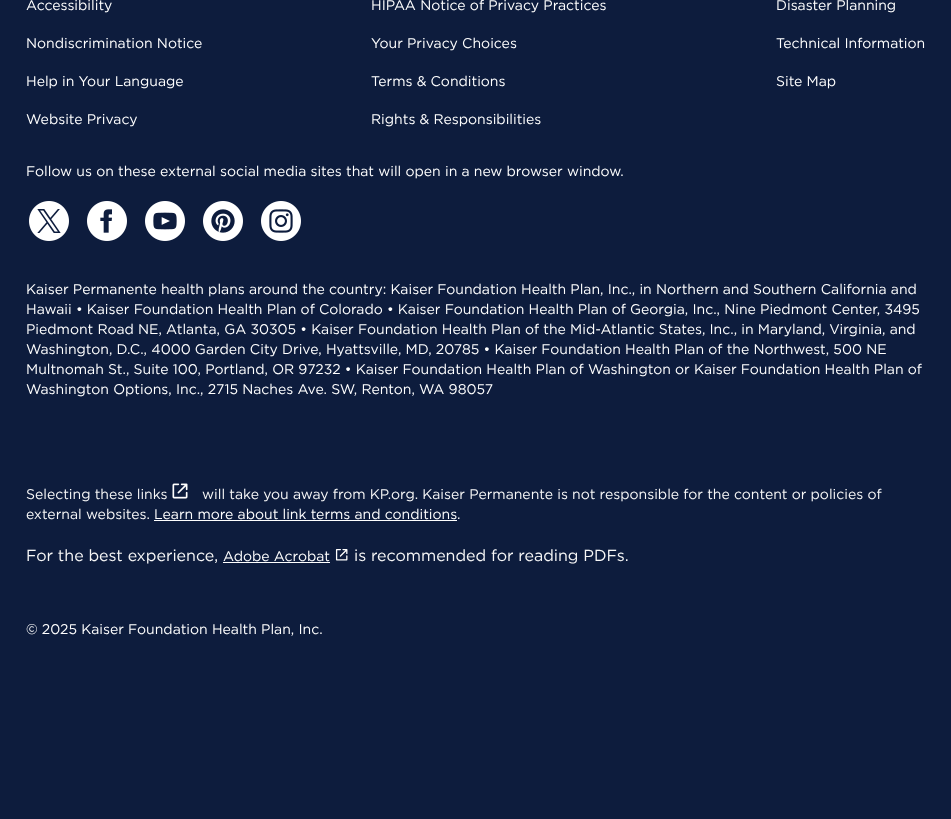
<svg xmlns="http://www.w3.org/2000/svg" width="951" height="819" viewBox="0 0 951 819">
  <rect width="100%" height="100%" fill="rgb(13,28,61)"/>
  <g font-family="'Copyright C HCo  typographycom'" font-size="14" font-weight="300" fill="rgb(255,255,255)">
    <text x="26" y="10">Accessibility</text>
    <text x="26" y="48">Nondiscrimination Notice</text>
    <text x="26" y="86">Help in Your Language</text>
    <text x="26" y="124">Website Privacy</text>
    <text x="371" y="10">HIPAA Notice of Privacy Practices</text>
    <text x="371" y="48">Your Privacy Choices</text>
    <text x="371" y="86">Terms &amp; Conditions</text>
    <text x="371" y="124">Rights &amp; Responsibilities</text>
    <text x="776" y="10">Disaster Planning</text>
    <text x="776" y="48">Technical Information</text>
    <text x="776" y="86">Site Map</text>
    <text x="26" y="176">Follow us on these external social media sites that will open in a new browser window.</text>
  </g>
  <image x="29" y="201" width="40" height="40" href="pic1.png"/>
  <image x="87" y="201" width="40" height="40" href="pic2.png"/>
  <image x="145" y="201" width="40" height="40" href="pic3.png"/>
  <image x="203" y="201" width="40" height="40" href="pic4.png"/>
  <image x="261" y="201" width="40" height="40" href="pic5.png"/>
  <g font-family="'Copyright C HCo  typographycom'" font-size="14" font-weight="300" fill="rgb(255,255,255)">
    <text>
      <tspan x="26" y="294">Kaiser Permanente health plans around the country: Kaiser Foundation Health Plan, Inc., in Northern and Southern California and</tspan>
      <tspan x="26" y="314">Hawaii • Kaiser Foundation Health Plan of Colorado • Kaiser Foundation Health Plan of Georgia, Inc., Nine Piedmont Center, 3495</tspan>
      <tspan x="26" y="334">Piedmont Road NE, Atlanta, GA 30305 • Kaiser Foundation Health Plan of the Mid-Atlantic States, Inc., in Maryland, Virginia, and</tspan>
      <tspan x="26" y="354">Washington, D.C., 4000 Garden City Drive, Hyattsville, MD, 20785 • Kaiser Foundation Health Plan of the Northwest, 500 NE</tspan>
      <tspan x="26" y="374">Multnomah St., Suite 100, Portland, OR 97232 • Kaiser Foundation Health Plan of Washington or Kaiser Foundation Health Plan of</tspan>
      <tspan x="26" y="394">Washington Options, Inc., 2715 Naches Ave. SW, Renton, WA 98057</tspan>
    </text>
  </g>
  <text x="26" y="499" font-family="'Copyright C HCo  typographycom'" font-size="14" font-weight="300" fill="rgb(247,247,247)">Selecting these links</text>
  <image x="172" y="483" width="16" height="16" href="pic6.png"/>
  <g font-family="'Copyright C HCo  typographycom'" font-size="14" font-weight="300" fill="rgb(247,247,247)">
    <text x="202" y="499">will take you away from KP.org. Kaiser Permanente is not responsible for the content or policies of</text>
    <text x="26" y="519">external websites.</text>
  </g>
  <text x="154" y="519" font-family="'Copyright C HCo  typographycom'" font-size="14" font-weight="300" fill="rgb(255,255,255)">Learn more about link terms and conditions</text>
  <text x="457" y="519" font-family="'Copyright C HCo  typographycom'" font-size="14" font-weight="300" fill="rgb(247,247,247)">.</text>
  <rect x="154" y="520" width="303" height="1" fill="rgb(255,255,255)"/>
  <text x="26" y="561" font-family="'Copyright C HCo  typographycom'" font-size="16" font-weight="300" fill="rgb(247,247,247)">For the best experience,</text>
  <text x="223" y="561" font-family="'Copyright C HCo  typographycom'" font-size="14" font-weight="300" fill="rgb(255,255,255)">Adobe Acrobat</text>
  <rect x="223" y="562" width="107" height="1" fill="rgb(255,255,255)"/>
  <image x="335" y="549" width="13" height="12" href="pic7.png"/>
  <text x="354" y="561" font-family="'Copyright C HCo  typographycom'" font-size="16" font-weight="300" fill="rgb(247,247,247)">is recommended for reading PDFs.</text>
  <text x="26" y="634" font-family="'Copyright C HCo  typographycom'" font-size="14" font-weight="300" fill="rgb(255,255,255)">© 2025 Kaiser Foundation Health Plan, Inc.</text>
</svg>
